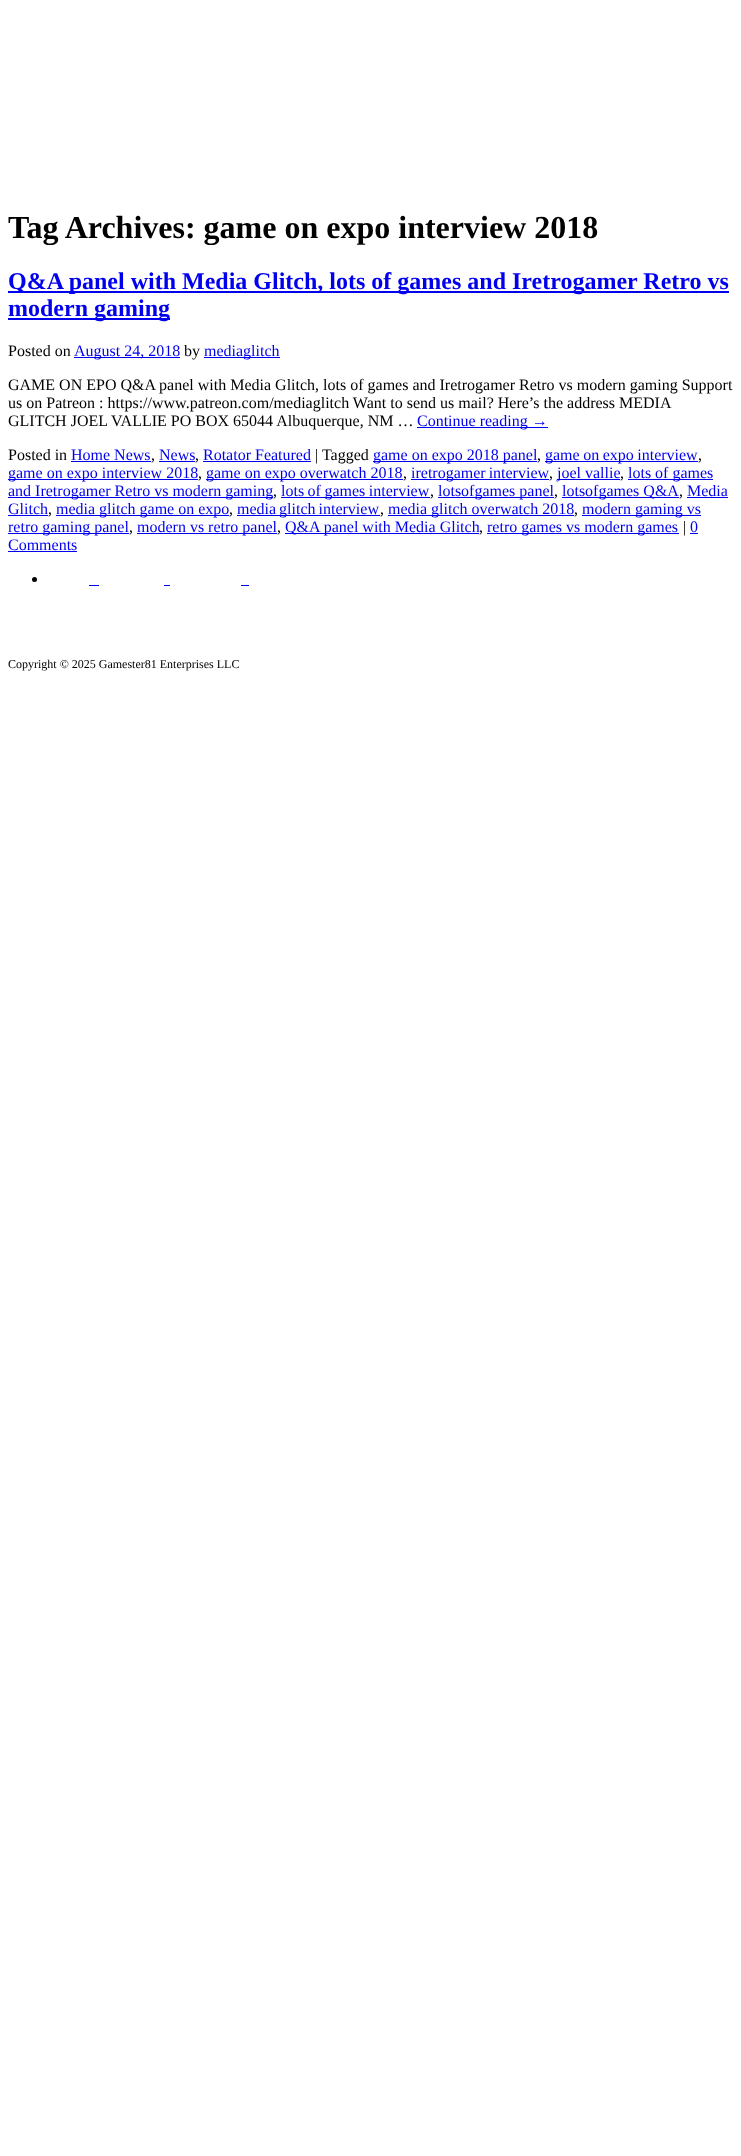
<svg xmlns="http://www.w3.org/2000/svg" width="741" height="2156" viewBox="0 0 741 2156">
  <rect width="100%" height="100%" fill="rgb(255,255,255)"/>
  <text x="8" y="238" font-family="Liberation Serif" font-size="32" font-weight="bold" fill="rgb(0,0,0)">Tag Archives: game on expo interview 2018</text>
  <rect x="8" y="291" width="721" height="2" fill="rgb(0,0,238)"/>
  <text x="8" y="289" font-family="Liberation Serif" font-size="24" font-weight="bold" fill="rgb(0,0,238)">Q&amp;A panel with Media Glitch, lots of games and Iretrogamer Retro vs</text>
  <rect x="8" y="318" width="162" height="2" fill="rgb(0,0,238)"/>
  <text x="8" y="316" font-family="Liberation Serif" font-size="24" font-weight="bold" fill="rgb(0,0,238)">modern gaming</text>
  <text x="8" y="356" font-family="Liberation Serif" font-size="16" fill="rgb(0,0,0)">Posted on</text>
  <rect x="74" y="357" width="106" height="1" fill="rgb(0,0,238)"/>
  <text x="74" y="356" font-family="Liberation Serif" font-size="16" fill="rgb(0,0,238)">August 24, 2018</text>
  <text x="184" y="356" font-family="Liberation Serif" font-size="16" fill="rgb(0,0,0)">by</text>
  <rect x="204" y="357" width="76" height="1" fill="rgb(0,0,238)"/>
  <text x="204" y="356" font-family="Liberation Serif" font-size="16" fill="rgb(0,0,238)">mediaglitch</text>
  <g font-family="Liberation Serif" font-size="16" fill="rgb(0,0,0)">
    <text>
      <tspan x="8" y="390">GAME ON EPO Q&amp;A panel with Media Glitch, lots of games and Iretrogamer Retro vs modern gaming Support</tspan>
      <tspan x="8" y="408">us on Patreon : https://www.patreon.com/mediaglitch Want to send us mail? Here’s the address MEDIA</tspan>
      <tspan x="8" y="426">GLITCH JOEL VALLIE PO BOX 65044 Albuquerque, NM …</tspan>
    </text>
  </g>
  <rect x="417" y="427" width="131" height="1" fill="rgb(0,0,238)"/>
  <text x="417" y="426" font-family="Liberation Serif" font-size="16" fill="rgb(0,0,238)">Continue reading →</text>
  <text x="8" y="460" font-family="Liberation Serif" font-size="16" fill="rgb(0,0,0)">Posted in</text>
  <text x="71" y="460" font-family="Liberation Serif" font-size="16" fill="rgb(0,0,238)">Home News</text>
  <text x="151" y="460" font-family="Liberation Serif" font-size="16" fill="rgb(0,0,0)">,</text>
  <rect x="71" y="461" width="80" height="1" fill="rgb(0,0,238)"/>
  <text x="159" y="460" font-family="Liberation Serif" font-size="16" fill="rgb(0,0,238)">News</text>
  <text x="195" y="460" font-family="Liberation Serif" font-size="16" fill="rgb(0,0,0)">,</text>
  <rect x="159" y="461" width="36" height="1" fill="rgb(0,0,238)"/>
  <rect x="203" y="461" width="108" height="1" fill="rgb(0,0,238)"/>
  <text x="203" y="460" font-family="Liberation Serif" font-size="16" fill="rgb(0,0,238)">Rotator Featured</text>
  <text x="315" y="460" font-family="Liberation Serif" font-size="16" fill="rgb(0,0,0)">| Tagged</text>
  <rect x="373" y="461" width="164" height="1" fill="rgb(0,0,238)"/>
  <text x="373" y="460" font-family="Liberation Serif" font-size="16" fill="rgb(0,0,238)">game on expo 2018 panel</text>
  <text x="537" y="460" font-family="Liberation Serif" font-size="16" fill="rgb(0,0,0)">,</text>
  <rect x="545" y="461" width="153" height="1" fill="rgb(0,0,238)"/>
  <text x="545" y="460" word-spacing="-0.5" font-family="Liberation Serif" font-size="16" fill="rgb(0,0,238)">game on expo interview</text>
  <text x="698" y="460" font-family="Liberation Serif" font-size="16" fill="rgb(0,0,0)">,</text>
  <rect x="8" y="479" width="190" height="1" fill="rgb(0,0,238)"/>
  <text x="8" y="478" font-family="Liberation Serif" font-size="16" fill="rgb(0,0,238)">game on expo interview 2018</text>
  <text x="198" y="478" font-family="Liberation Serif" font-size="16" fill="rgb(0,0,0)">,</text>
  <rect x="206" y="479" width="197" height="1" fill="rgb(0,0,238)"/>
  <text x="206" y="478" font-family="Liberation Serif" font-size="16" fill="rgb(0,0,238)">game on expo overwatch 2018</text>
  <text x="403" y="478" font-family="Liberation Serif" font-size="16" fill="rgb(0,0,0)">,</text>
  <rect x="411" y="479" width="138" height="1" fill="rgb(0,0,238)"/>
  <text x="411" y="478" word-spacing="-1" font-family="Liberation Serif" font-size="16" fill="rgb(0,0,238)">iretrogamer interview</text>
  <text x="549" y="478" font-family="Liberation Serif" font-size="16" fill="rgb(0,0,0)">,</text>
  <rect x="557" y="479" width="63" height="1" fill="rgb(0,0,238)"/>
  <text x="557" y="478" font-family="Liberation Serif" font-size="16" fill="rgb(0,0,238)">joel vallie</text>
  <text x="620" y="478" font-family="Liberation Serif" font-size="16" fill="rgb(0,0,0)">,</text>
  <rect x="628" y="479" width="85" height="1" fill="rgb(0,0,238)"/>
  <text x="628" y="478" font-family="Liberation Serif" font-size="16" fill="rgb(0,0,238)">lots of games</text>
  <rect x="8" y="497" width="265" height="1" fill="rgb(0,0,238)"/>
  <text x="8" y="496" font-family="Liberation Serif" font-size="16" fill="rgb(0,0,238)">and Iretrogamer Retro vs modern gaming</text>
  <text x="273" y="496" font-family="Liberation Serif" font-size="16" fill="rgb(0,0,0)">,</text>
  <rect x="281" y="497" width="149" height="1" fill="rgb(0,0,238)"/>
  <text x="281" y="496" word-spacing="-0.5" font-family="Liberation Serif" font-size="16" fill="rgb(0,0,238)">lots of games interview</text>
  <text x="430" y="496" font-family="Liberation Serif" font-size="16" fill="rgb(0,0,0)">,</text>
  <rect x="438" y="497" width="116" height="1" fill="rgb(0,0,238)"/>
  <text x="438" y="496" font-family="Liberation Serif" font-size="16" fill="rgb(0,0,238)">lotsofgames panel</text>
  <text x="554" y="496" font-family="Liberation Serif" font-size="16" fill="rgb(0,0,0)">,</text>
  <rect x="562" y="497" width="117" height="1" fill="rgb(0,0,238)"/>
  <text x="562" y="496" font-family="Liberation Serif" font-size="16" fill="rgb(0,0,238)">lotsofgames Q&amp;A</text>
  <text x="679" y="496" font-family="Liberation Serif" font-size="16" fill="rgb(0,0,0)">,</text>
  <rect x="687" y="497" width="41" height="1" fill="rgb(0,0,238)"/>
  <g font-family="Liberation Serif" font-size="16" fill="rgb(0,0,238)">
    <text x="687" y="496">Media</text>
    <text x="8" y="514">Glitch</text>
  </g>
  <text x="48" y="514" font-family="Liberation Serif" font-size="16" fill="rgb(0,0,0)">,</text>
  <rect x="8" y="515" width="40" height="1" fill="rgb(0,0,238)"/>
  <rect x="56" y="515" width="173" height="1" fill="rgb(0,0,238)"/>
  <text x="56" y="514" font-family="Liberation Serif" font-size="16" fill="rgb(0,0,238)">media glitch game on expo</text>
  <text x="229" y="514" font-family="Liberation Serif" font-size="16" fill="rgb(0,0,0)">,</text>
  <rect x="237" y="515" width="143" height="1" fill="rgb(0,0,238)"/>
  <text x="237" y="514" word-spacing="-1" font-family="Liberation Serif" font-size="16" fill="rgb(0,0,238)">media glitch interview</text>
  <text x="380" y="514" font-family="Liberation Serif" font-size="16" fill="rgb(0,0,0)">,</text>
  <rect x="388" y="515" width="186" height="1" fill="rgb(0,0,238)"/>
  <text x="388" y="514" font-family="Liberation Serif" font-size="16" fill="rgb(0,0,238)">media glitch overwatch 2018</text>
  <text x="574" y="514" font-family="Liberation Serif" font-size="16" fill="rgb(0,0,0)">,</text>
  <rect x="582" y="515" width="119" height="1" fill="rgb(0,0,238)"/>
  <text x="582" y="514" font-family="Liberation Serif" font-size="16" fill="rgb(0,0,238)">modern gaming vs</text>
  <rect x="8" y="533" width="121" height="1" fill="rgb(0,0,238)"/>
  <text x="8" y="532" font-family="Liberation Serif" font-size="16" fill="rgb(0,0,238)">retro gaming panel</text>
  <text x="129" y="532" font-family="Liberation Serif" font-size="16" fill="rgb(0,0,0)">,</text>
  <rect x="137" y="533" width="140" height="1" fill="rgb(0,0,238)"/>
  <text x="137" y="532" font-family="Liberation Serif" font-size="16" fill="rgb(0,0,238)">modern vs retro panel</text>
  <text x="277" y="532" font-family="Liberation Serif" font-size="16" fill="rgb(0,0,0)">,</text>
  <rect x="285" y="533" width="194" height="1" fill="rgb(0,0,238)"/>
  <text x="285" y="532" font-family="Liberation Serif" font-size="16" fill="rgb(0,0,238)">Q&amp;A panel with Media Glitch</text>
  <text x="479" y="532" font-family="Liberation Serif" font-size="16" fill="rgb(0,0,0)">,</text>
  <rect x="487" y="533" width="192" height="1" fill="rgb(0,0,238)"/>
  <text x="487" y="532" font-family="Liberation Serif" font-size="16" fill="rgb(0,0,238)">retro games vs modern games</text>
  <text x="683" y="532" font-family="Liberation Serif" font-size="16" fill="rgb(0,0,0)">|</text>
  <text x="690" y="532" font-family="Liberation Serif" font-size="16" fill="rgb(0,0,238)">0</text>
  <rect x="690" y="533" width="8" height="1" fill="rgb(0,0,238)"/>
  <text x="8" y="550" font-family="Liberation Serif" font-size="16" fill="rgb(0,0,238)">Comments</text>
  <rect x="8" y="551" width="69" height="1" fill="rgb(0,0,238)"/>
  <circle cx="34.5" cy="579.5" r="2.5" fill="rgb(0,0,0)"/>
  <rect x="89" y="585" width="10" height="1" fill="rgb(0,0,238)"/>
  <rect x="164" y="585" width="6" height="1" fill="rgb(0,0,238)"/>
  <rect x="241" y="585" width="8" height="1" fill="rgb(0,0,238)"/>
  <text x="8" y="668" font-family="Liberation Serif" font-size="12" fill="rgb(0,0,0)">Copyright © 2025 Gamester81 Enterprises LLC</text>
</svg>
